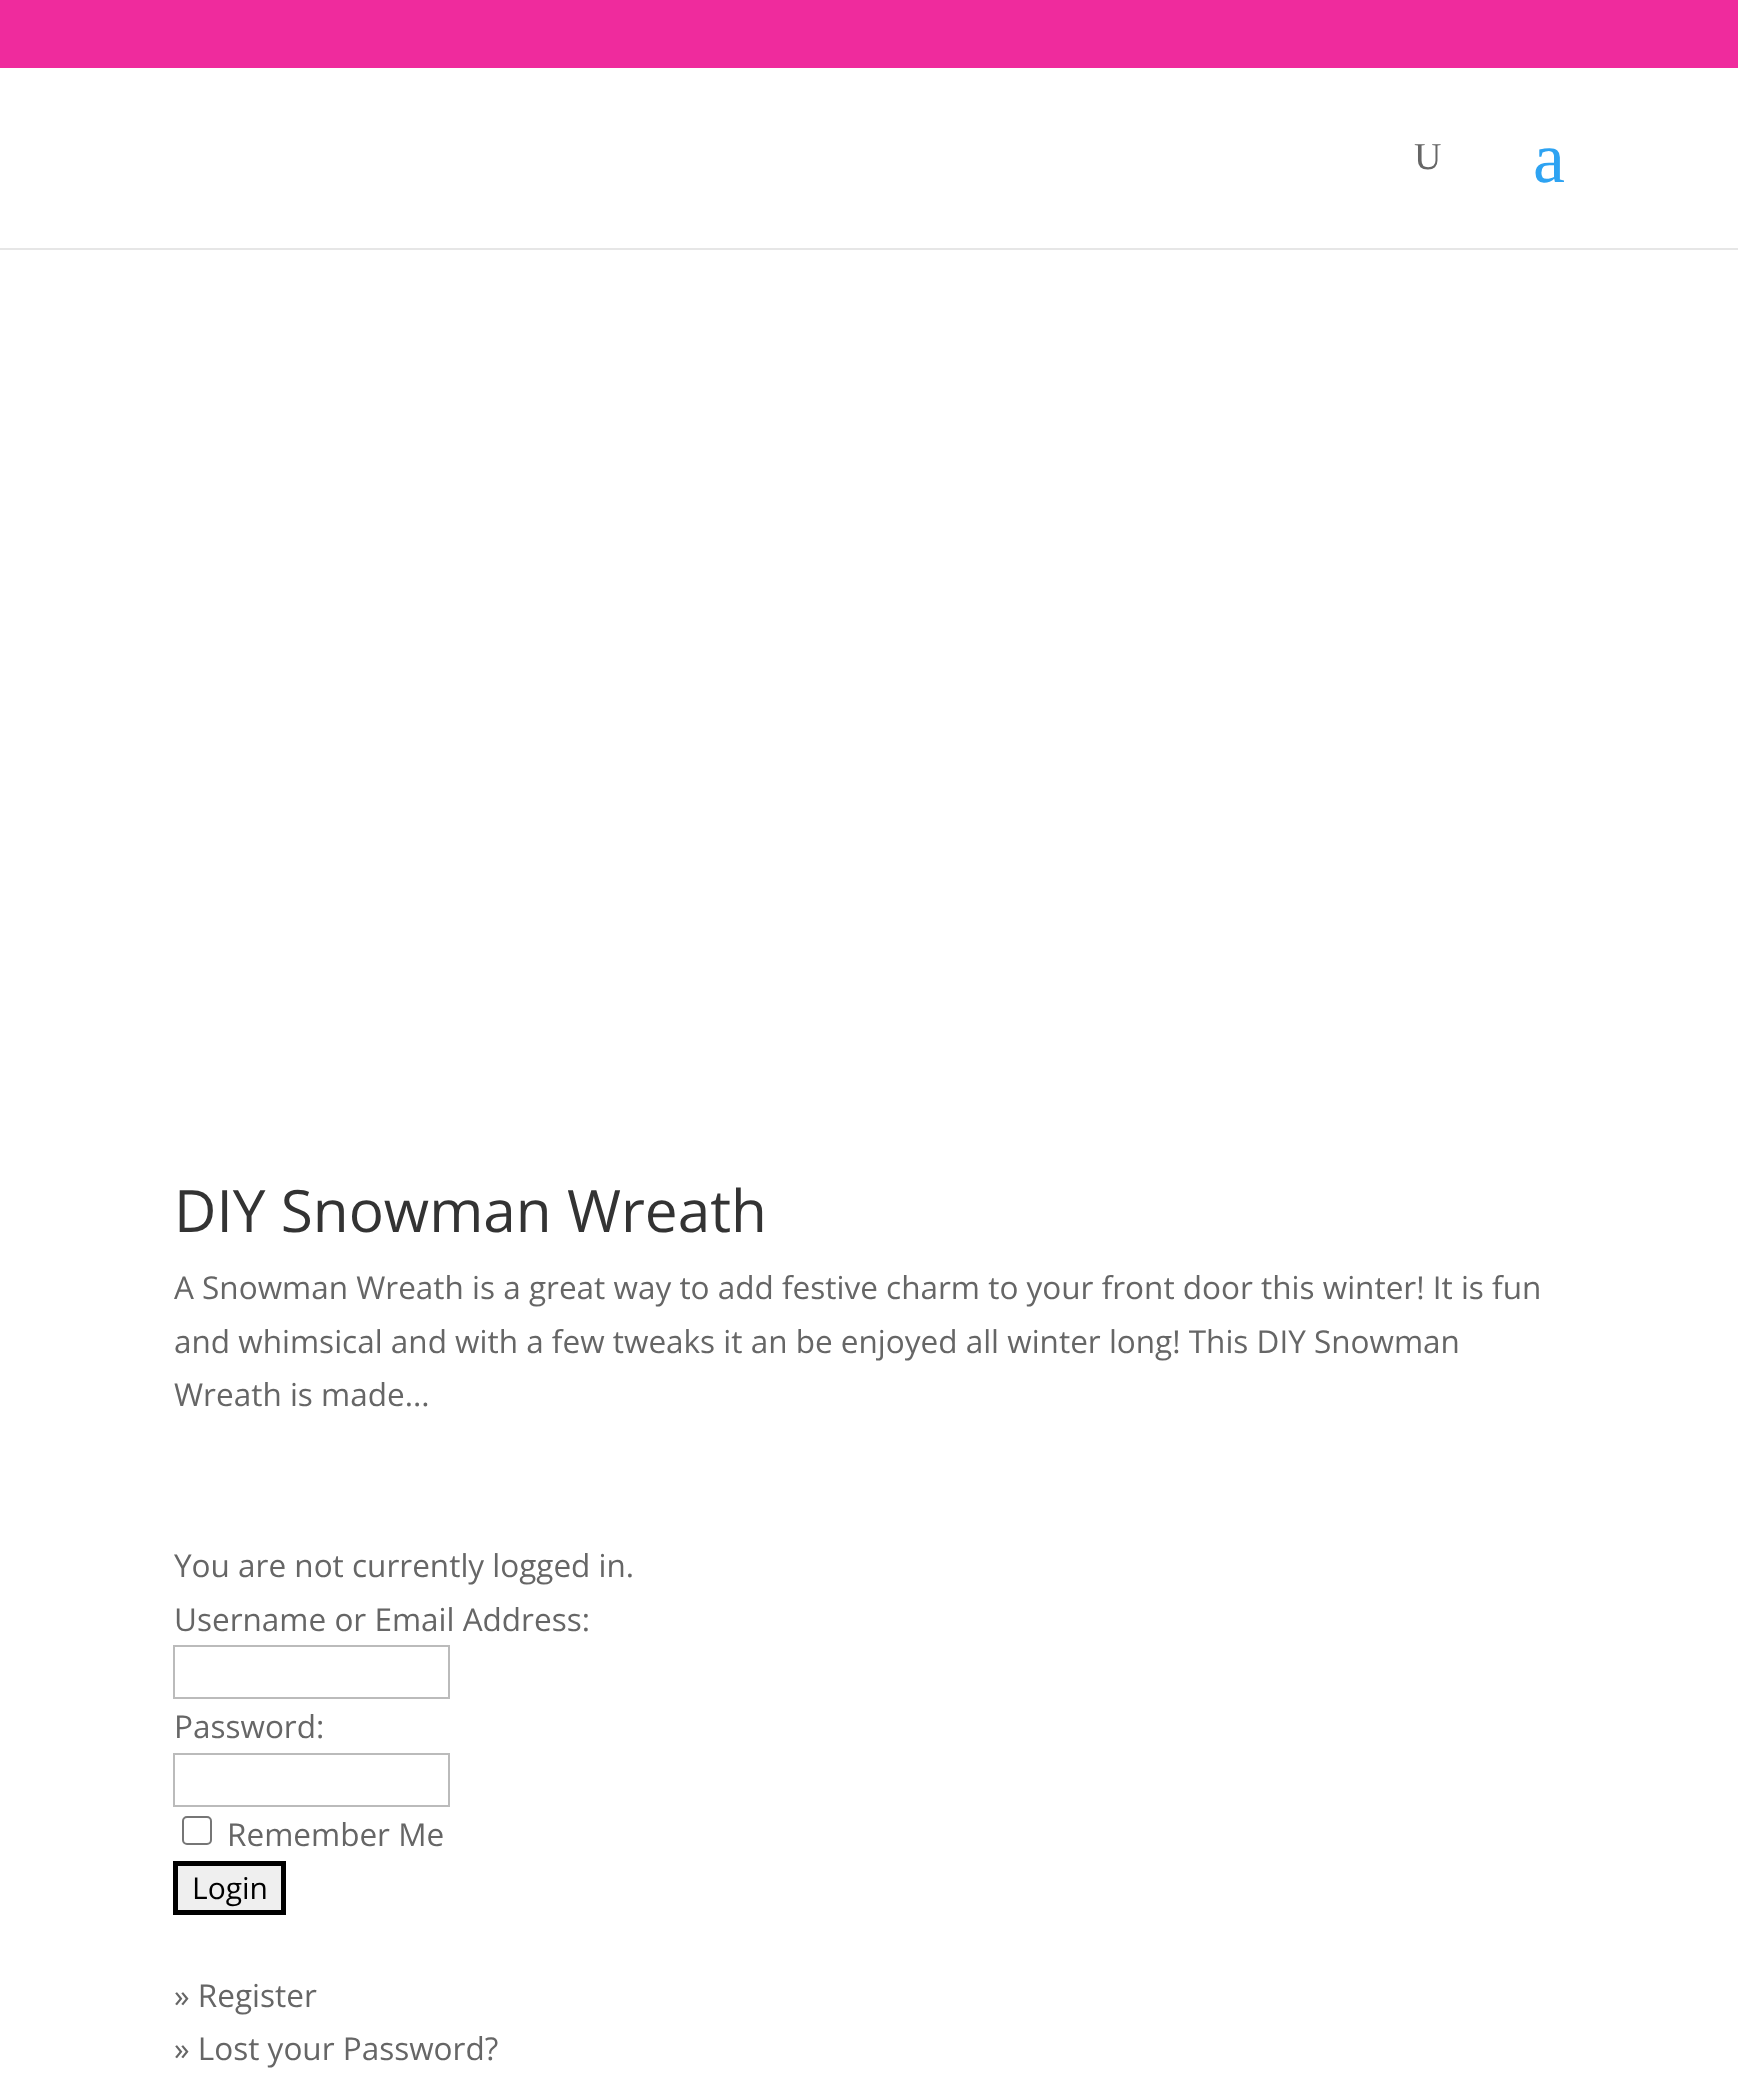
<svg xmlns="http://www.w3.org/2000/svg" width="1738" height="2090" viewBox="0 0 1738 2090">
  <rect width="100%" height="100%" fill="rgb(239,43,157)"/>
  <rect x="0" y="248" width="1738" height="2" fill="rgb(230,230,230)"/>
  <rect x="0" y="68" width="1738" height="180" fill="rgb(255,255,255)"/>
  <text x="1414" y="169" font-family="Liberation Serif" font-size="38" fill="rgb(102,102,102)">U</text>
  <text x="1533" y="182" font-family="Liberation Serif" font-size="72" fill="rgb(46,163,242)">a</text>
  <rect x="0" y="250" width="1738" height="1840" fill="rgb(255,255,255)"/>
  <text x="174" y="1232" font-family="Open Sans" font-size="58.5" fill="rgb(51,51,51)">DIY Snowman Wreath</text>
  <g font-family="Open Sans" font-size="31.5" fill="rgb(102,102,102)">
    <text>
      <tspan x="174" y="1299">A Snowman Wreath is a great way to add festive charm to your front door this winter! It is fun</tspan>
      <tspan x="174" y="1353">and whimsical and with a few tweaks it an be enjoyed all winter long! This DIY Snowman</tspan>
      <tspan x="174" y="1406">Wreath is made...</tspan>
    </text>
    <text>
      <tspan x="174" y="1577">You are not currently logged in.</tspan>
      <tspan x="174" y="1631">Username or Email Address:</tspan>
    </text>
  </g>
  <rect x="174" y="1646" width="275" height="52" fill="none" stroke="rgb(187,187,187)" stroke-width="2"/>
  <text x="174" y="1738" font-family="Open Sans" font-size="31.5" fill="rgb(102,102,102)">Password:</text>
  <rect x="174" y="1754" width="275" height="52" fill="none" stroke="rgb(187,187,187)" stroke-width="2"/>
  <rect x="183" y="1817" width="28" height="27" rx="4" fill="none" stroke="rgb(118,118,118)" stroke-width="2"/>
  <text x="227" y="1846" font-family="Open Sans" font-size="31.5" fill="rgb(102,102,102)">Remember Me</text>
  <rect x="175.5" y="1863.5" width="108" height="49" fill="rgb(239,239,239)" stroke="rgb(0,0,0)" stroke-width="5"/>
  <text x="192" y="1899" font-family="Open Sans" font-size="30" fill="rgb(0,0,0)">Login</text>
  <g font-family="Open Sans" font-size="31.5" fill="rgb(102,102,102)">
    <text>
      <tspan x="174" y="2007">» Register</tspan>
      <tspan x="174" y="2060">» Lost your Password?</tspan>
    </text>
  </g>
</svg>
